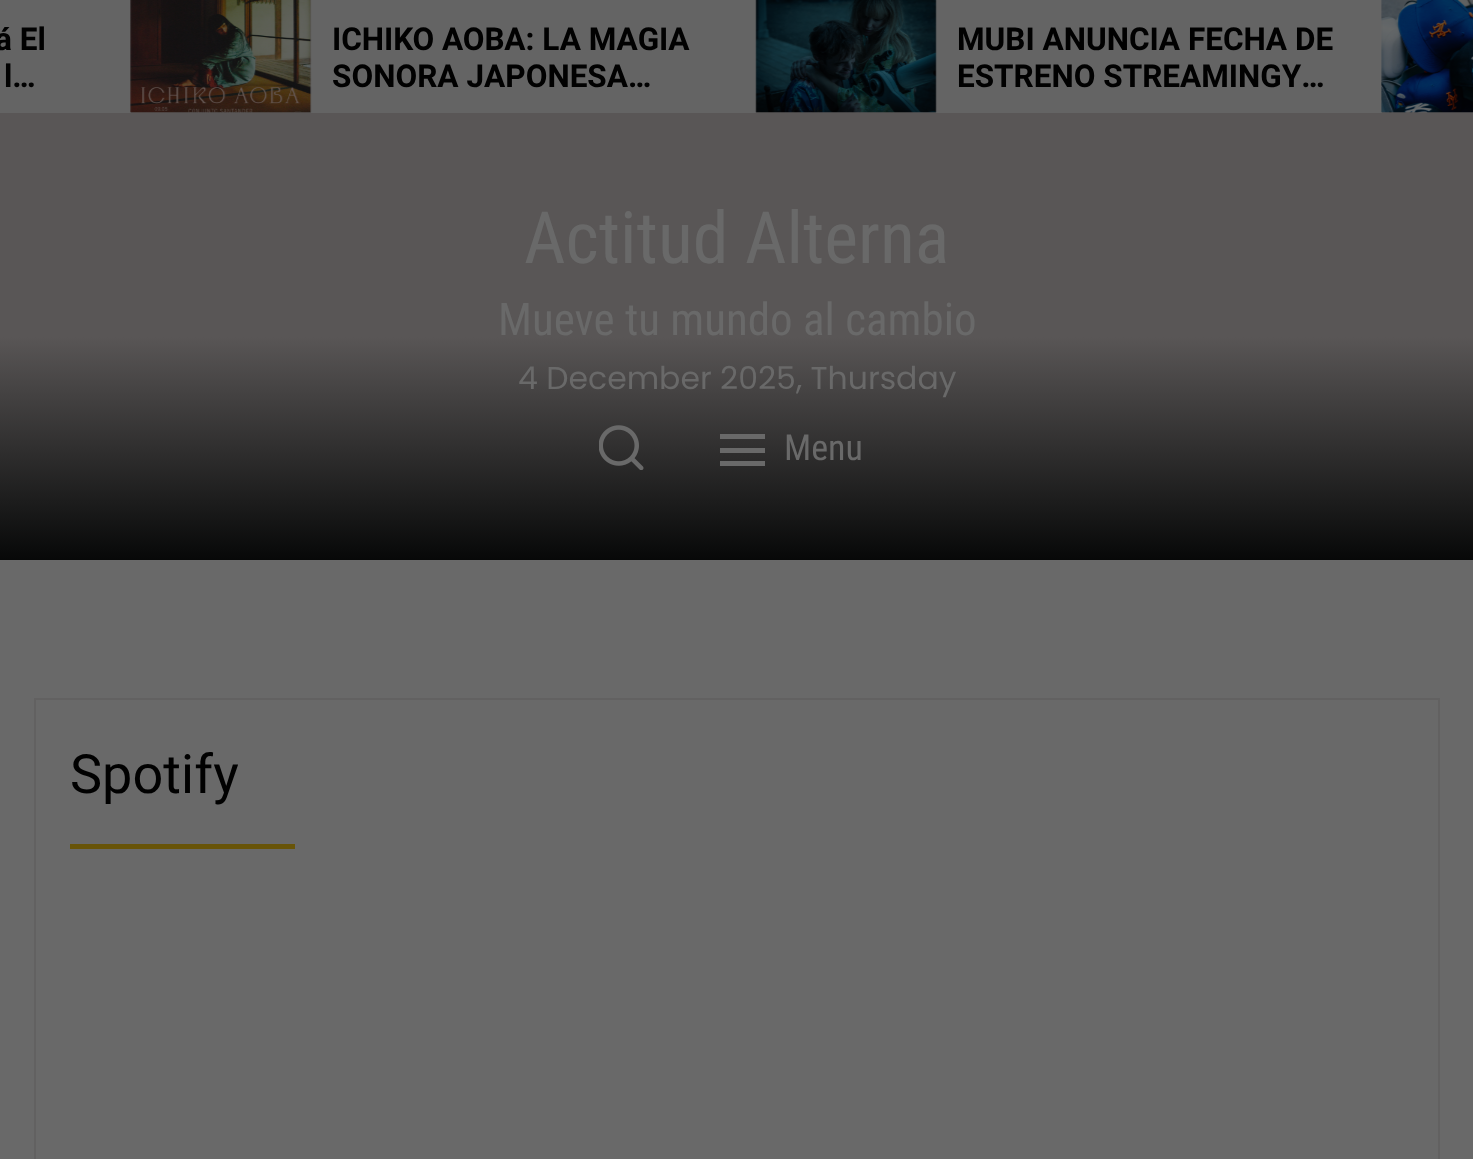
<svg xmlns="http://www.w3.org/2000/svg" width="1473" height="1159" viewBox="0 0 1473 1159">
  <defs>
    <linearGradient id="g1" gradientUnits="userSpaceOnUse" x1="737" y1="560" x2="737" y2="113"><stop offset="0" stop-color="rgb(7,8,8)"/><stop offset="0.5" stop-color="rgb(89,86,86)"/></linearGradient>
  </defs>
  <rect width="100%" height="100%" fill="rgb(105,105,105)"/>
  <rect x="0" y="0" width="1382" height="113" fill="rgb(100,100,100)"/>
  <g font-family="Heebo" font-size="31.5" font-weight="bold" fill="rgb(1,1,1)">
    <text x="-5" y="50">á El</text>
    <text x="4" y="87">l…</text>
  </g>
  <rect x="131" y="0" width="180" height="113" fill="rgb(89,86,86)"/>
  <image x="130" y="0" width="182" height="113" href="pic1.png"/>
  <g font-family="Heebo" font-size="31.5" font-weight="bold" fill="rgb(1,1,1)">
    <text>
      <tspan x="332" y="50">ICHIKO AOBA: LA MAGIA</tspan>
      <tspan x="332" y="87">SONORA JAPONESA…</tspan>
    </text>
  </g>
  <rect x="756" y="0" width="180" height="113" fill="rgb(89,86,86)"/>
  <image x="755" y="0" width="182" height="113" href="pic2.png"/>
  <g font-family="Heebo" font-size="31.5" font-weight="bold" fill="rgb(1,1,1)">
    <text>
      <tspan x="957" y="50">MUBI ANUNCIA FECHA DE</tspan>
      <tspan x="957" y="87">ESTRENO STREAMINGY…</tspan>
    </text>
  </g>
  <rect x="1382" y="0" width="91" height="113" fill="rgb(89,86,86)"/>
  <image x="1381" y="0" width="92" height="113" href="pic3.png"/>
  <rect x="0" y="113" width="1473" height="447" fill="url(#g1)"/>
  <text x="524" y="263" font-family="Roboto Condensed" font-size="72" fill="rgb(105,105,105)">Actitud Alterna</text>
  <text x="498" y="335" font-family="Roboto Condensed" font-size="45" fill="rgb(105,105,105)">Mueve tu mundo al cambio</text>
  <text x="518" y="389" font-family="Poppins" font-size="31.5" fill="rgb(105,105,105)">4 December 2025, Thursday</text>
  <image x="599" y="425" width="45" height="45" href="pic4.png"/>
  <rect x="720" y="434" width="45" height="5" fill="rgb(105,105,105)"/>
  <rect x="720" y="448" width="45" height="5" fill="rgb(105,105,105)"/>
  <rect x="720" y="461" width="45" height="5" fill="rgb(105,105,105)"/>
  <text x="784" y="460" font-family="Roboto Condensed" font-size="36" fill="rgb(105,105,105)">Menu</text>
  <rect x="35" y="699" width="1404" height="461" fill="none" stroke="rgb(98,97,97)" stroke-width="2"/>
  <text x="70" y="793" font-family="Heebo" font-size="54" fill="rgb(1,1,1)">Spotify</text>
  <rect x="70" y="844" width="225" height="5" fill="rgb(104,84,8)"/>
</svg>
